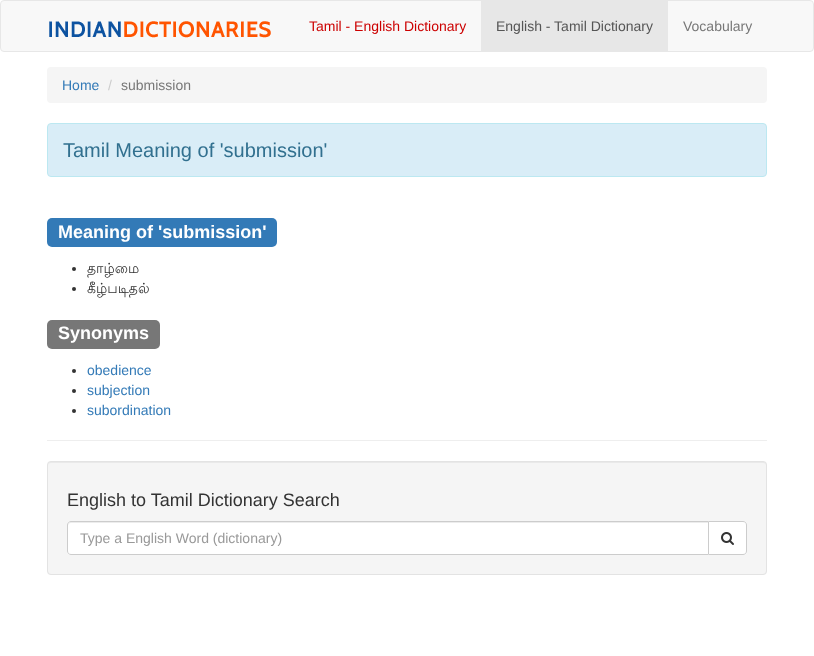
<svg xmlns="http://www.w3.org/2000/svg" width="814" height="656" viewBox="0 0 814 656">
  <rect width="100%" height="100%" fill="rgb(255,255,255)"/>
  <rect x="0.5" y="0.5" width="813" height="51" rx="3.5" fill="rgb(248,248,248)" stroke="rgb(231,231,231)"/>
  <image x="49" y="21" width="222" height="17" href="pic1.png"/>
  <text x="309" y="31" font-family="Liberation Sans" font-size="14" fill="rgb(204,0,0)">Tamil - English Dictionary</text>
  <rect x="481" y="1" width="187" height="50" fill="rgb(231,231,231)"/>
  <text x="496" y="31" font-family="Liberation Sans" font-size="14" fill="rgb(85,85,85)">English - Tamil Dictionary</text>
  <text x="683" y="31" font-family="Liberation Sans" font-size="14" fill="rgb(119,119,119)">Vocabulary</text>
  <rect x="47" y="67" width="720" height="36" rx="4" fill="rgb(245,245,245)"/>
  <text x="62" y="90" font-family="Liberation Sans" font-size="14" fill="rgb(51,122,183)">Home</text>
  <text x="108" y="90" font-family="Liberation Sans" font-size="14" fill="rgb(204,204,204)">/</text>
  <text x="121" y="90" font-family="Liberation Sans" font-size="14" fill="rgb(119,119,119)">submission</text>
  <rect x="47.5" y="123.5" width="719" height="53" rx="3.5" fill="rgb(217,237,247)" stroke="rgb(188,232,241)"/>
  <text x="63" y="157" font-family="Liberation Sans" font-size="20" fill="rgb(49,112,143)">Tamil Meaning of 'submission'</text>
  <rect x="47" y="218" width="230" height="29" rx="5" fill="rgb(51,122,183)"/>
  <text x="58" y="238" font-family="Liberation Sans" font-size="18" font-weight="bold" fill="rgb(255,255,255)">Meaning of 'submission'</text>
  <circle cx="74" cy="269" r="2" fill="rgb(51,51,51)"/>
  <text x="87" y="273" font-family="Lohit Tamil" font-size="14" fill="rgb(51,51,51)">தாழ்மை</text>
  <circle cx="74" cy="289" r="2" fill="rgb(51,51,51)"/>
  <text x="87" y="293" font-family="Lohit Tamil" font-size="14" fill="rgb(51,51,51)">கீழ்படிதல்</text>
  <rect x="47" y="320" width="113" height="29" rx="5" fill="rgb(119,119,119)"/>
  <text x="58" y="339" font-family="Liberation Sans" font-size="18" font-weight="bold" fill="rgb(255,255,255)">Synonyms</text>
  <circle cx="74" cy="371" r="2" fill="rgb(51,51,51)"/>
  <text x="87" y="375" font-family="Liberation Sans" font-size="14" fill="rgb(51,122,183)">obedience</text>
  <circle cx="74" cy="391" r="2" fill="rgb(51,51,51)"/>
  <text x="87" y="395" font-family="Liberation Sans" font-size="14" fill="rgb(51,122,183)">subjection</text>
  <circle cx="74" cy="411" r="2" fill="rgb(51,51,51)"/>
  <text x="87" y="415" font-family="Liberation Sans" font-size="14" fill="rgb(51,122,183)">subordination</text>
  <rect x="47" y="440" width="720" height="1" fill="rgb(238,238,238)"/>
  <rect x="47" y="461" width="720" height="114" rx="4" fill="rgb(245,245,245)"/>
  <path d="M51 463H763C765 463 766 464 766 466C766 464 765 462 763 462H51C49 462 48 464 48 466C48 464 49 463 51 463Z" fill="rgb(233,233,233)"/>
  <rect x="47.5" y="461.5" width="719" height="113" rx="3.5" fill="none" stroke="rgb(227,227,227)"/>
  <text x="67" y="506" font-family="Liberation Sans" font-size="18" fill="rgb(51,51,51)">English to Tamil Dictionary Search</text>
  <path d="M708.5 521.5H743C745 521.5 746.5 523 746.5 525V551C746.5 553 745 554.5 743 554.5H708.5Z" fill="rgb(255,255,255)" stroke="rgb(204,204,204)"/>
  <path d="M71 521H709V555H71C69 555 67 553 67 551V525C67 523 69 521 71 521Z" fill="rgb(255,255,255)"/>
  <path d="M71 523H708V522H71C69 522 68 523 68 525V526C68 524 69 523 71 523Z" fill="rgb(236,236,236)"/>
  <path d="M71 521.5H708.5V554.5H71C69 554.5 67.5 553 67.5 551V525C67.5 523 69 521.5 71 521.5Z" fill="none" stroke="rgb(204,204,204)"/>
  <text x="80" y="543" font-family="Liberation Sans" font-size="14" fill="rgb(153,153,153)">Type a English Word (dictionary)</text>
  <image x="721" y="532" width="13" height="13" href="pic2.png"/>
</svg>
